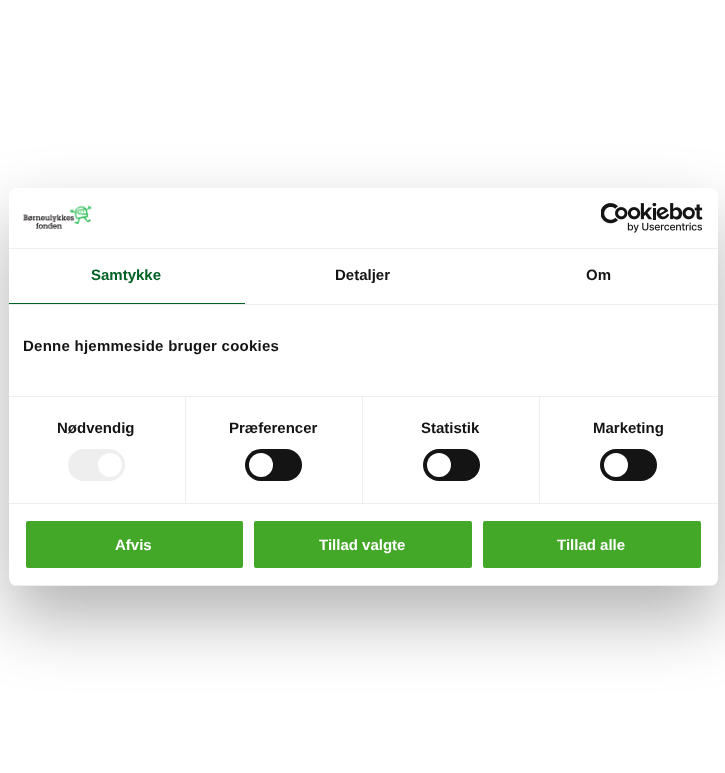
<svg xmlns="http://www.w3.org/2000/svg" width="725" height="773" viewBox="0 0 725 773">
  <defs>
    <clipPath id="clip1"><rect x="9" y="188" width="709" height="398" rx="8"/></clipPath>
  </defs>
  <rect width="100%" height="100%" fill="rgb(255,255,255)"/>
  <rect x="9" y="220" width="709" height="398" rx="8" fill="rgba(0,0,0,0.3)" filter="blur(34px)"/>
  <rect x="9" y="188" width="709" height="398" rx="8" fill="rgb(255,255,255)"/>
  <rect x="9" y="248" width="709" height="1" fill="rgb(237,238,237)"/>
  <image x="23" y="205" width="69" height="24" href="pic1.png"/>
  <image x="601" y="203" width="102" height="30" href="pic2.png"/>
  <rect x="9" y="304" width="709" height="1" fill="rgb(237,238,237)"/>
  <rect x="9" y="303" width="236" height="1" fill="rgb(0,97,36)"/>
  <text x="91" y="280" font-family="Liberation Sans" font-size="15" font-weight="bold" fill="rgb(0,97,36)">Samtykke</text>
  <g font-family="Liberation Sans" font-size="15" font-weight="bold" fill="rgb(20,20,20)">
    <text x="335" y="280">Detaljer</text>
    <text x="586" y="280">Om</text>
  </g>
  <rect x="9" y="396" width="709" height="1" fill="rgb(237,238,237)"/>
  <text x="23" y="351" font-family="Liberation Sans" font-size="15" font-weight="bold" letter-spacing="0.25" fill="rgb(20,20,20)">Denne hjemmeside bruger cookies</text>
  <rect x="9" y="503" width="709" height="1" fill="rgb(237,238,237)"/>
  <rect x="185" y="397" width="1" height="106" fill="rgb(237,238,237)"/>
  <text x="57" y="433" font-family="Liberation Sans" font-size="15" font-weight="bold" fill="rgb(20,20,20)">Nødvendig</text>
  <rect x="68" y="449" width="57" height="32" rx="16" fill="rgb(237,238,237)"/>
  <circle cx="110" cy="465" r="12" fill="rgb(255,255,255)"/>
  <rect x="362" y="397" width="1" height="106" fill="rgb(237,238,237)"/>
  <text x="229" y="433" font-family="Liberation Sans" font-size="15" font-weight="bold" fill="rgb(20,20,20)">Præferencer</text>
  <rect x="245" y="449" width="57" height="32" rx="16" fill="rgb(20,20,20)"/>
  <circle cx="261" cy="465" r="12" fill="rgb(255,255,255)"/>
  <rect x="539" y="397" width="1" height="106" fill="rgb(237,238,237)"/>
  <text x="421" y="433" font-family="Liberation Sans" font-size="15" font-weight="bold" fill="rgb(20,20,20)">Statistik</text>
  <rect x="423" y="449" width="57" height="32" rx="16" fill="rgb(20,20,20)"/>
  <circle cx="439" cy="465" r="12" fill="rgb(255,255,255)"/>
  <text x="593" y="433" font-family="Liberation Sans" font-size="15" font-weight="bold" fill="rgb(20,20,20)">Marketing</text>
  <rect x="600" y="449" width="57" height="32" rx="16" fill="rgb(20,20,20)"/>
  <circle cx="616" cy="465" r="12" fill="rgb(255,255,255)"/>
  <g clip-path="url(#clip1)">
    <rect x="9" y="585" width="709" height="1" fill="rgb(237,238,237)"/>
  </g>
  <rect x="25" y="520" width="219" height="49" rx="3" fill="rgb(67,167,40)" stroke="rgb(255,255,255)" stroke-width="2"/>
  <text x="115" y="550" font-family="Liberation Sans" font-size="15" font-weight="bold" fill="rgb(255,255,255)">Afvis</text>
  <rect x="253" y="520" width="220" height="49" rx="3" fill="rgb(67,167,40)" stroke="rgb(255,255,255)" stroke-width="2"/>
  <text x="319" y="550" font-family="Liberation Sans" font-size="15" font-weight="bold" fill="rgb(255,255,255)">Tillad valgte</text>
  <rect x="482" y="520" width="220" height="49" rx="3" fill="rgb(67,167,40)" stroke="rgb(255,255,255)" stroke-width="2"/>
  <text x="557" y="550" font-family="Liberation Sans" font-size="15" font-weight="bold" fill="rgb(255,255,255)">Tillad alle</text>
</svg>
